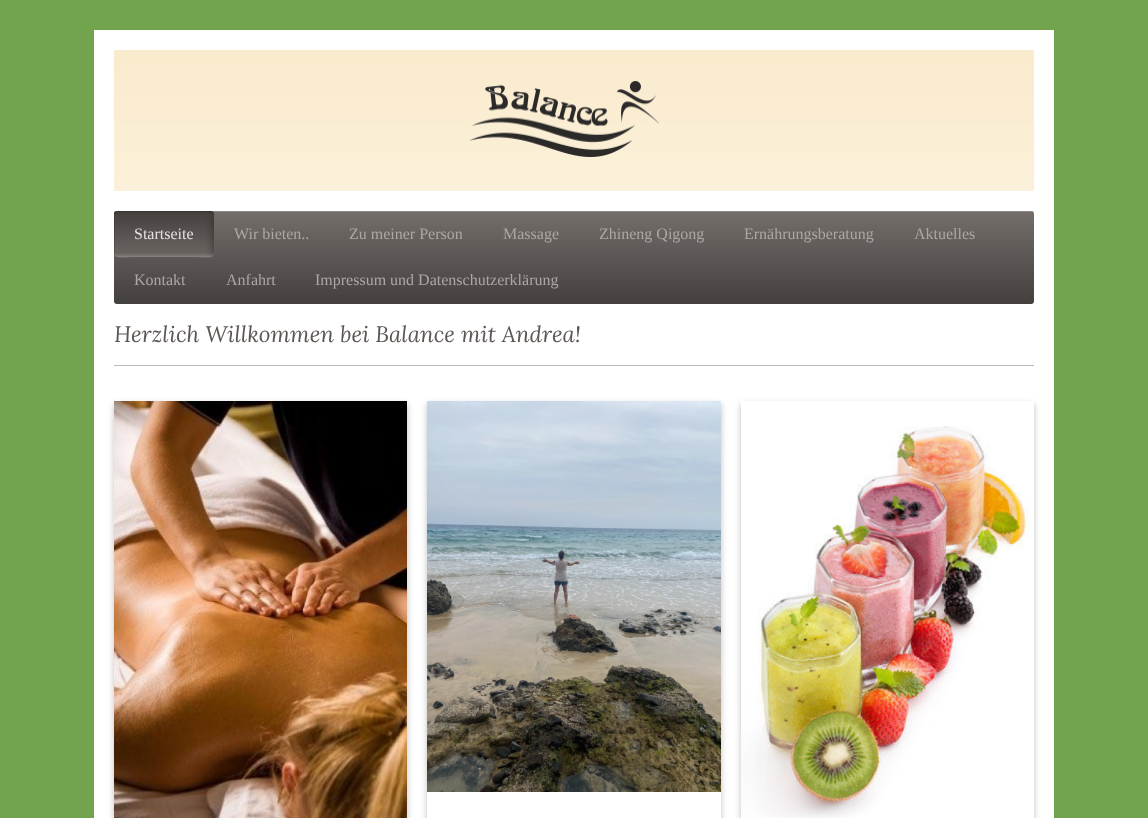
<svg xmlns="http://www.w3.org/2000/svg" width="1148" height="818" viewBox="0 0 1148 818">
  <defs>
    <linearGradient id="g1" gradientUnits="userSpaceOnUse" x1="114" y1="211" x2="114" y2="304"><stop offset="0" stop-color="rgb(116,110,106)"/><stop offset="1" stop-color="rgb(68,64,62)"/></linearGradient>
    <linearGradient id="g2" gradientUnits="userSpaceOnUse" x1="114" y1="257" x2="114" y2="211"><stop offset="0" stop-color="rgb(108,102,99)"/><stop offset="1" stop-color="rgb(68,64,62)"/></linearGradient>
    <clipPath id="clip1"><rect x="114" y="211" width="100" height="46" rx="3"/></clipPath>
    <clipPath id="clip2"><path d="M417 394H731V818H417ZM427 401H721V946H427Z" clip-rule="evenodd"/></clipPath>
    <clipPath id="clip3"><path d="M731 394H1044V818H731ZM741 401H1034V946H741Z" clip-rule="evenodd"/></clipPath>
  </defs>
  <rect width="100%" height="100%" fill="rgb(114,164,78)"/>
  <rect x="94" y="30" width="960" height="788" fill="rgb(255,255,255)"/>
  <rect x="114" y="50" width="920" height="141" fill="rgb(249,232,197)"/>
  <image x="114" y="50" width="920" height="141" href="pic1.png"/>
  <image x="469" y="81" width="190" height="76" href="pic2.png"/>
  <rect x="114" y="211" width="920" height="93" rx="3" fill="url(#g1)"/>
  <path d="M117 212H1031C1033 212 1034 213 1034 215C1034 213 1033 211 1031 211H117C115 211 114 213 114 215C114 213 115 212 117 212Z" fill="rgb(139,135,134)"/>
  <rect x="114" y="211" width="100" height="46" rx="3" fill="url(#g2)"/>
  <path d="M118 212H213C213 211 212 211 211 211H117C115 211 114 212 114 214V254C114 255 114 256 115 256V222C115 219 113 212 118 212Z" fill="rgba(0,0,0,0.15)"/>
  <path d="M117 214H211C213 214 214 215 214 217V214C214 212 213 211 211 211H117C115 211 114 212 114 214V217C114 215 115 214 117 214Z" fill="rgba(0,0,0,0.04)"/>
  <path d="M114 251V254C114 256 115 257 117 257H211C213 257 214 256 214 254V251C214 253 213 254 211 254H117C115 254 114 253 114 251Z" fill="rgba(255,255,255,0.08)"/>
  <path d="M114 253C114 261 130 257 133 257H195C198 257 214 261 214 253C214 255 213 256 211 256H117C115 256 114 255 114 253Z" fill="rgba(255,255,255,0.1)"/>
  <text x="134" y="239" font-family="Liberation Serif" font-size="16" fill="rgb(227,225,225)">Startseite</text>
  <g clip-path="url(#clip1)">
    <rect x="212" y="213" width="16" height="46" rx="8" fill="rgba(0,0,0,0.3)" filter="blur(3.5px)"/>
  </g>
  <g font-family="Liberation Serif" font-size="16" fill="rgb(172,167,165)">
    <text x="234" y="239">Wir bieten..</text>
    <text x="349" y="239">Zu meiner Person</text>
    <text x="503" y="239">Massage</text>
    <text x="599" y="239">Zhineng Qigong</text>
    <text x="744" y="239">Ernährungsberatung</text>
    <text x="914" y="239">Aktuelles</text>
    <text x="134" y="285">Kontakt</text>
    <text x="226" y="285">Anfahrt</text>
    <text x="315" y="285">Impressum und Datenschutzerklärung</text>
  </g>
  <text x="114" y="342" font-family="Lora" font-size="22.4" font-style="italic" fill="rgb(92,87,84)">Herzlich Willkommen bei Balance mit Andrea!</text>
  <rect x="114" y="365" width="920" height="1" fill="rgb(186,186,186)"/>
  <rect x="114" y="404" width="293" height="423" fill="rgba(0,0,0,0.25)" filter="blur(3px)"/>
  <image x="114" y="401" width="293" height="417" href="pic3.png"/>
  <g clip-path="url(#clip2)">
    <rect x="427" y="404" width="294" height="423" fill="rgba(0,0,0,0.25)" filter="blur(3px)"/>
  </g>
  <image x="427" y="401" width="294" height="391" href="pic4.png"/>
  <g clip-path="url(#clip3)">
    <rect x="741" y="404" width="293" height="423" fill="rgba(0,0,0,0.25)" filter="blur(3px)"/>
  </g>
  <image x="741" y="426" width="290" height="392" href="pic5.png"/>
</svg>
